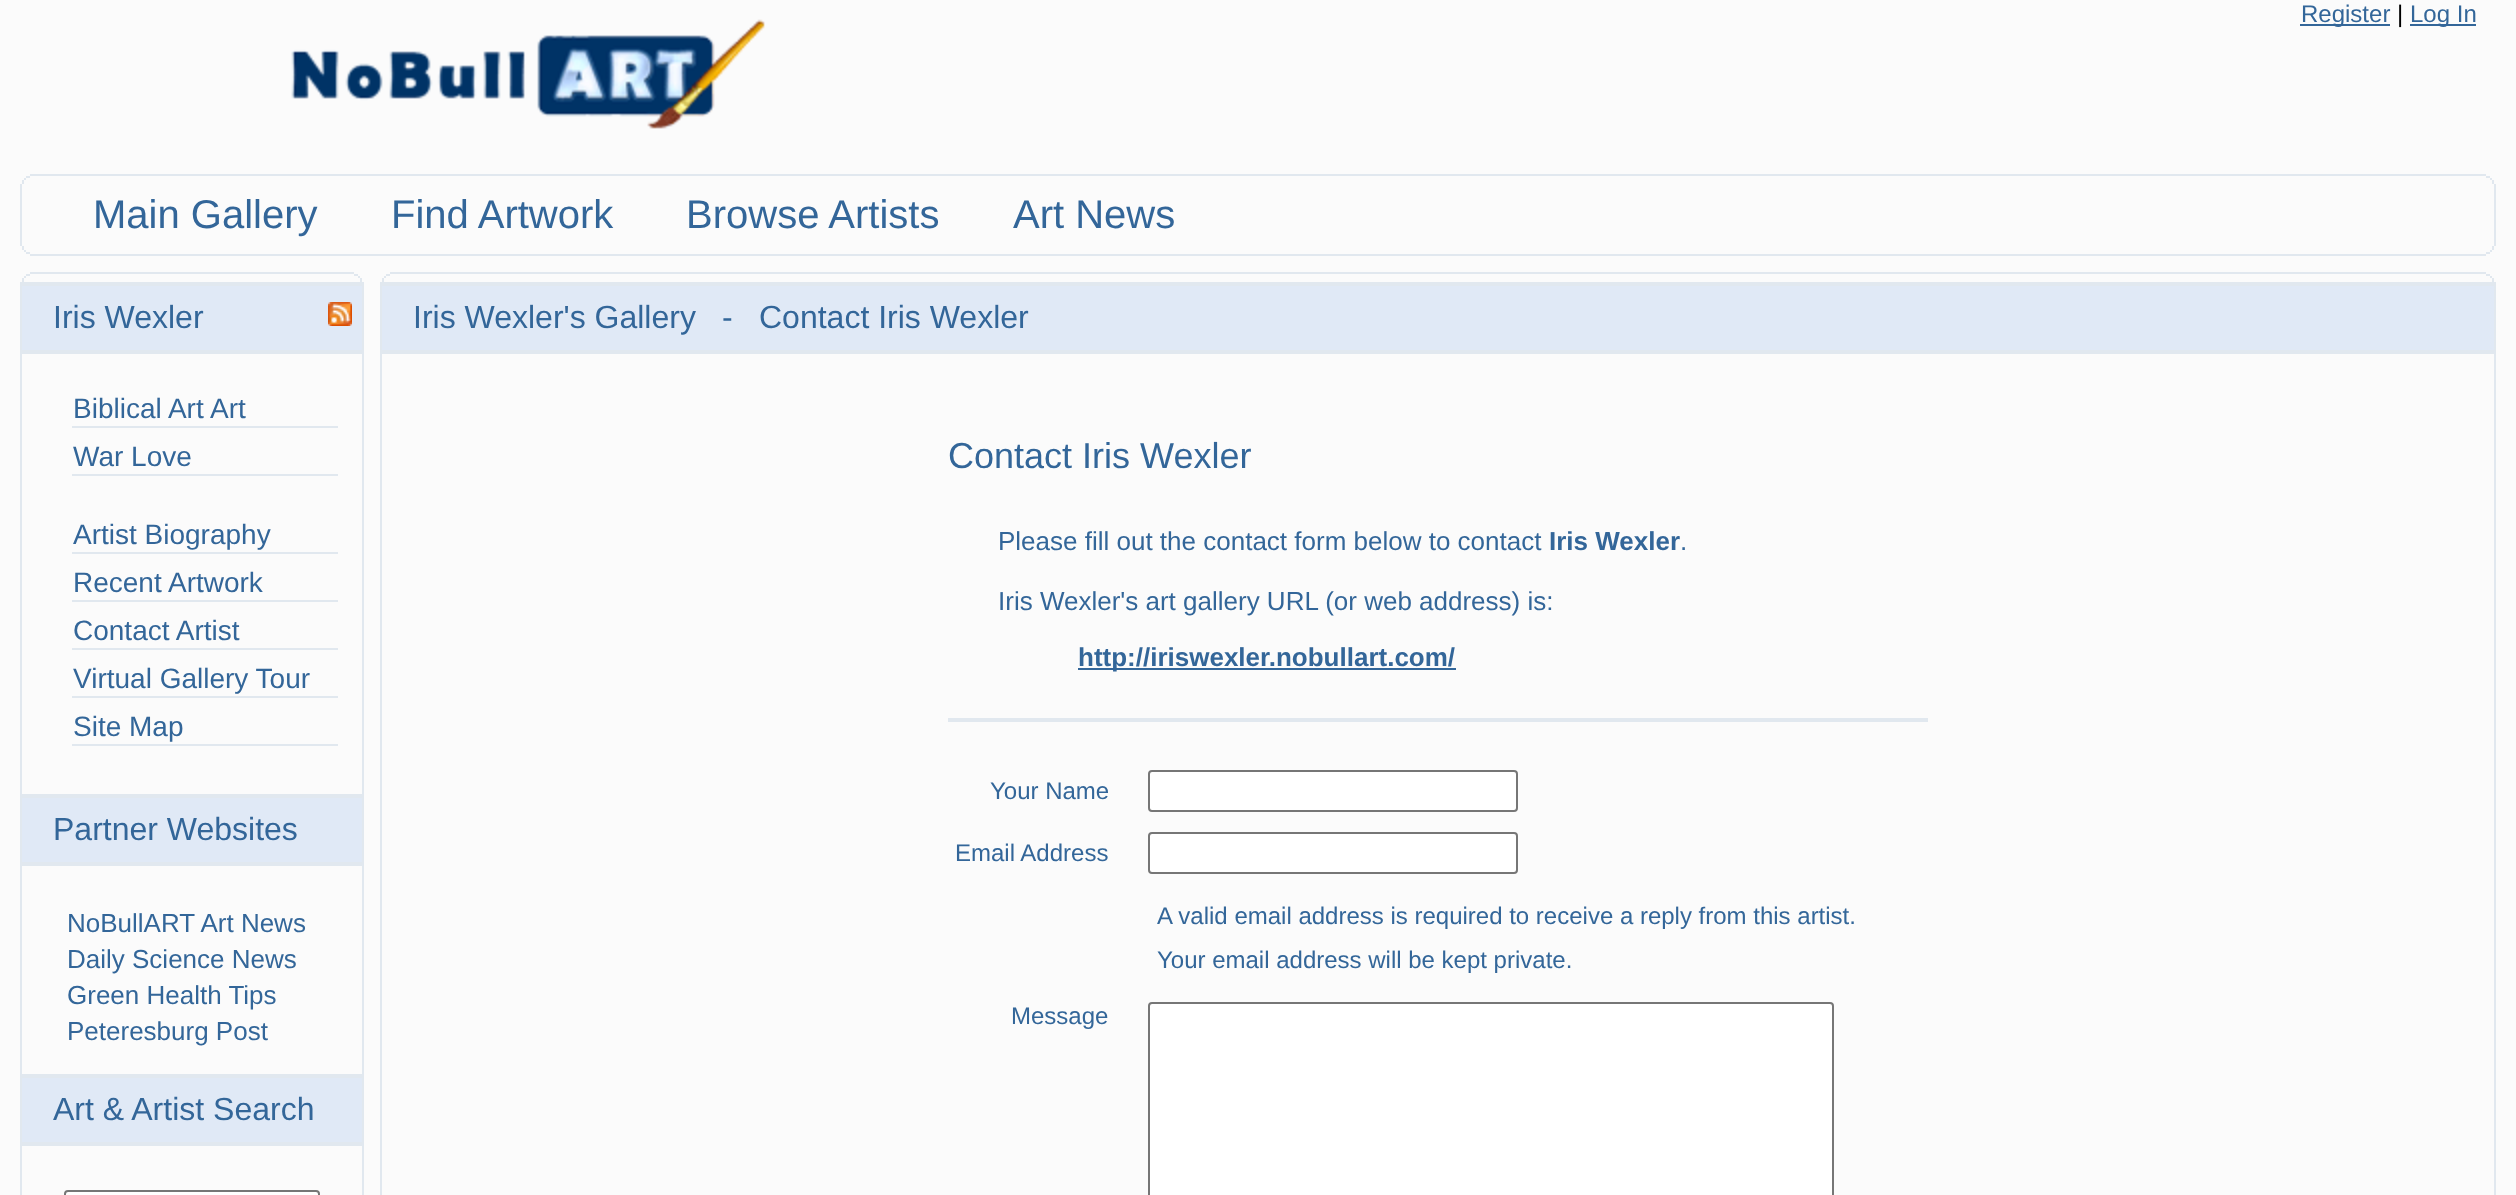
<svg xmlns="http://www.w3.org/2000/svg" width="2516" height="1195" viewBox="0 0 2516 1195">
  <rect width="100%" height="100%" fill="rgb(251,251,251)"/>
  <rect x="2300" y="24" width="90" height="2" fill="rgb(51,102,153)"/>
  <text x="2301" y="22" font-family="Liberation Sans" font-size="24" fill="rgb(51,102,153)">Register</text>
  <text x="2397" y="22" font-family="Liberation Sans" font-size="24" fill="rgb(0,0,0)">|</text>
  <rect x="2410" y="24" width="66" height="2" fill="rgb(51,102,153)"/>
  <text x="2410" y="22" font-family="Liberation Sans" font-size="24" fill="rgb(51,102,153)">Log In</text>
  <image x="291" y="19" width="474" height="110" href="pic1.png"/>
  <rect x="30" y="174" width="2456" height="2" fill="rgb(225,232,239)"/>
  <rect x="2486" y="176" width="4" height="2" fill="rgb(225,232,239)"/>
  <rect x="26" y="176" width="4" height="2" fill="rgb(225,232,239)"/>
  <rect x="2490" y="178" width="2" height="2" fill="rgb(225,232,239)"/>
  <rect x="24" y="178" width="2" height="2" fill="rgb(225,232,239)"/>
  <rect x="2492" y="180" width="2" height="4" fill="rgb(225,232,239)"/>
  <rect x="22" y="180" width="2" height="4" fill="rgb(225,232,239)"/>
  <rect x="2494" y="184" width="2" height="62" fill="rgb(225,232,239)"/>
  <rect x="20" y="184" width="2" height="62" fill="rgb(225,232,239)"/>
  <g font-family="Liberation Sans" font-size="40" fill="rgb(51,102,153)">
    <text x="93" y="228">Main Gallery</text>
    <text x="391" y="228">Find Artwork</text>
    <text x="686" y="228">Browse Artists</text>
    <text x="1013" y="228">Art News</text>
  </g>
  <rect x="2492" y="246" width="2" height="4" fill="rgb(225,232,239)"/>
  <rect x="22" y="246" width="2" height="4" fill="rgb(225,232,239)"/>
  <rect x="2490" y="250" width="2" height="2" fill="rgb(225,232,239)"/>
  <rect x="24" y="250" width="2" height="2" fill="rgb(225,232,239)"/>
  <rect x="2486" y="252" width="4" height="2" fill="rgb(225,232,239)"/>
  <rect x="26" y="252" width="4" height="2" fill="rgb(225,232,239)"/>
  <rect x="30" y="254" width="2456" height="2" fill="rgb(225,232,239)"/>
  <rect x="30" y="272" width="324" height="2" fill="rgb(225,232,239)"/>
  <rect x="354" y="274" width="4" height="2" fill="rgb(225,232,239)"/>
  <rect x="26" y="274" width="4" height="2" fill="rgb(225,232,239)"/>
  <rect x="358" y="276" width="2" height="2" fill="rgb(225,232,239)"/>
  <rect x="24" y="276" width="2" height="2" fill="rgb(225,232,239)"/>
  <rect x="360" y="278" width="2" height="4" fill="rgb(225,232,239)"/>
  <rect x="22" y="278" width="2" height="4" fill="rgb(225,232,239)"/>
  <rect x="362" y="282" width="2" height="913" fill="rgb(225,232,239)"/>
  <rect x="20" y="282" width="2" height="913" fill="rgb(225,232,239)"/>
  <rect x="22" y="286" width="340" height="64" fill="rgb(224,233,246)"/>
  <rect x="22" y="282" width="340" height="4" fill="rgb(225,232,239)"/>
  <rect x="22" y="350" width="340" height="4" fill="rgb(225,232,239)"/>
  <text x="53" y="328" font-family="Liberation Sans" font-size="32" fill="rgb(51,102,153)">Iris Wexler</text>
  <image x="328" y="302" width="24" height="24" href="pic2.png"/>
  <rect x="72" y="426" width="266" height="2" fill="rgb(225,232,239)"/>
  <text x="73" y="418" font-family="Liberation Sans" font-size="28" fill="rgb(51,102,153)">Biblical Art Art</text>
  <rect x="72" y="474" width="266" height="2" fill="rgb(225,232,239)"/>
  <text x="73" y="466" font-family="Liberation Sans" font-size="28" fill="rgb(51,102,153)">War Love</text>
  <rect x="72" y="552" width="266" height="2" fill="rgb(225,232,239)"/>
  <text x="73" y="544" font-family="Liberation Sans" font-size="28" fill="rgb(51,102,153)">Artist Biography</text>
  <rect x="72" y="600" width="266" height="2" fill="rgb(225,232,239)"/>
  <text x="73" y="592" font-family="Liberation Sans" font-size="28" fill="rgb(51,102,153)">Recent Artwork</text>
  <rect x="72" y="648" width="266" height="2" fill="rgb(225,232,239)"/>
  <text x="73" y="640" font-family="Liberation Sans" font-size="28" fill="rgb(51,102,153)">Contact Artist</text>
  <rect x="72" y="696" width="266" height="2" fill="rgb(225,232,239)"/>
  <text x="73" y="688" font-family="Liberation Sans" font-size="28" fill="rgb(51,102,153)">Virtual Gallery Tour</text>
  <rect x="72" y="744" width="266" height="2" fill="rgb(225,232,239)"/>
  <text x="73" y="736" font-family="Liberation Sans" font-size="28" fill="rgb(51,102,153)">Site Map</text>
  <rect x="22" y="798" width="340" height="64" fill="rgb(224,233,246)"/>
  <rect x="22" y="794" width="340" height="4" fill="rgb(225,232,239)"/>
  <rect x="22" y="862" width="340" height="4" fill="rgb(225,232,239)"/>
  <text x="53" y="840" font-family="Liberation Sans" font-size="32" fill="rgb(51,102,153)">Partner Websites</text>
  <g font-family="Liberation Sans" font-size="26" fill="rgb(51,102,153)">
    <text>
      <tspan x="67" y="932">NoBullART Art News</tspan>
      <tspan x="67" y="968">Daily Science News</tspan>
      <tspan x="67" y="1004">Green Health Tips</tspan>
      <tspan x="67" y="1040">Peteresburg Post</tspan>
    </text>
  </g>
  <rect x="22" y="1078" width="340" height="64" fill="rgb(224,233,246)"/>
  <rect x="22" y="1074" width="340" height="4" fill="rgb(225,232,239)"/>
  <rect x="22" y="1142" width="340" height="4" fill="rgb(225,232,239)"/>
  <text x="53" y="1120" font-family="Liberation Sans" font-size="32" fill="rgb(51,102,153)">Art &amp; Artist Search</text>
  <rect x="65" y="1191" width="254" height="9" rx="3" fill="rgb(255,255,255)" stroke="rgb(118,118,118)" stroke-width="2"/>
  <rect x="390" y="272" width="2096" height="2" fill="rgb(225,232,239)"/>
  <rect x="2486" y="274" width="4" height="2" fill="rgb(225,232,239)"/>
  <rect x="386" y="274" width="4" height="2" fill="rgb(225,232,239)"/>
  <rect x="2490" y="276" width="2" height="2" fill="rgb(225,232,239)"/>
  <rect x="384" y="276" width="2" height="2" fill="rgb(225,232,239)"/>
  <rect x="2492" y="278" width="2" height="4" fill="rgb(225,232,239)"/>
  <rect x="382" y="278" width="2" height="4" fill="rgb(225,232,239)"/>
  <rect x="2494" y="282" width="2" height="913" fill="rgb(225,232,239)"/>
  <rect x="380" y="282" width="2" height="913" fill="rgb(225,232,239)"/>
  <rect x="382" y="286" width="2112" height="64" fill="rgb(224,233,246)"/>
  <rect x="382" y="282" width="2112" height="4" fill="rgb(225,232,239)"/>
  <rect x="382" y="350" width="2112" height="4" fill="rgb(225,232,239)"/>
  <g font-family="Liberation Sans" font-size="32" fill="rgb(51,102,153)">
    <text x="413" y="328">Iris Wexler's Gallery</text>
    <text x="722" y="328">-</text>
    <text x="759" y="328">Contact Iris Wexler</text>
  </g>
  <text x="948" y="468" font-family="Liberation Sans" font-size="36" fill="rgb(51,102,153)">Contact Iris Wexler</text>
  <rect x="948" y="718" width="980" height="4" fill="rgb(225,232,239)"/>
  <text x="998" y="550" font-family="Liberation Sans" font-size="26" fill="rgb(51,102,153)">Please fill out the contact form below to contact</text>
  <text x="1549" y="550" font-family="Liberation Sans" font-size="26" font-weight="bold" fill="rgb(51,102,153)">Iris Wexler</text>
  <g font-family="Liberation Sans" font-size="26" fill="rgb(51,102,153)">
    <text x="1680" y="550">.</text>
    <text x="998" y="610">Iris Wexler's art gallery URL (or web address) is:</text>
  </g>
  <rect x="1078" y="668" width="378" height="2" fill="rgb(51,102,153)"/>
  <text x="1078" y="666" font-family="Liberation Sans" font-size="26" font-weight="bold" fill="rgb(51,102,153)">http://iriswexler.nobullart.com/</text>
  <text x="990" y="799" font-family="Liberation Sans" font-size="24" fill="rgb(51,102,153)">Your Name</text>
  <rect x="1149" y="771" width="368" height="40" rx="3" fill="rgb(255,255,255)" stroke="rgb(118,118,118)" stroke-width="2"/>
  <text x="955" y="861" font-family="Liberation Sans" font-size="24" fill="rgb(51,102,153)">Email Address</text>
  <rect x="1149" y="833" width="368" height="40" rx="3" fill="rgb(255,255,255)" stroke="rgb(118,118,118)" stroke-width="2"/>
  <g font-family="Liberation Sans" font-size="24" fill="rgb(51,102,153)">
    <text>
      <tspan x="1157" y="924">A valid email address is required to receive a reply from this artist.</tspan>
      <tspan x="1157" y="968">Your email address will be kept private.</tspan>
    </text>
    <text x="1011" y="1024">Message</text>
  </g>
  <rect x="1149" y="1003" width="684" height="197" rx="3" fill="rgb(255,255,255)" stroke="rgb(118,118,118)" stroke-width="2"/>
</svg>
